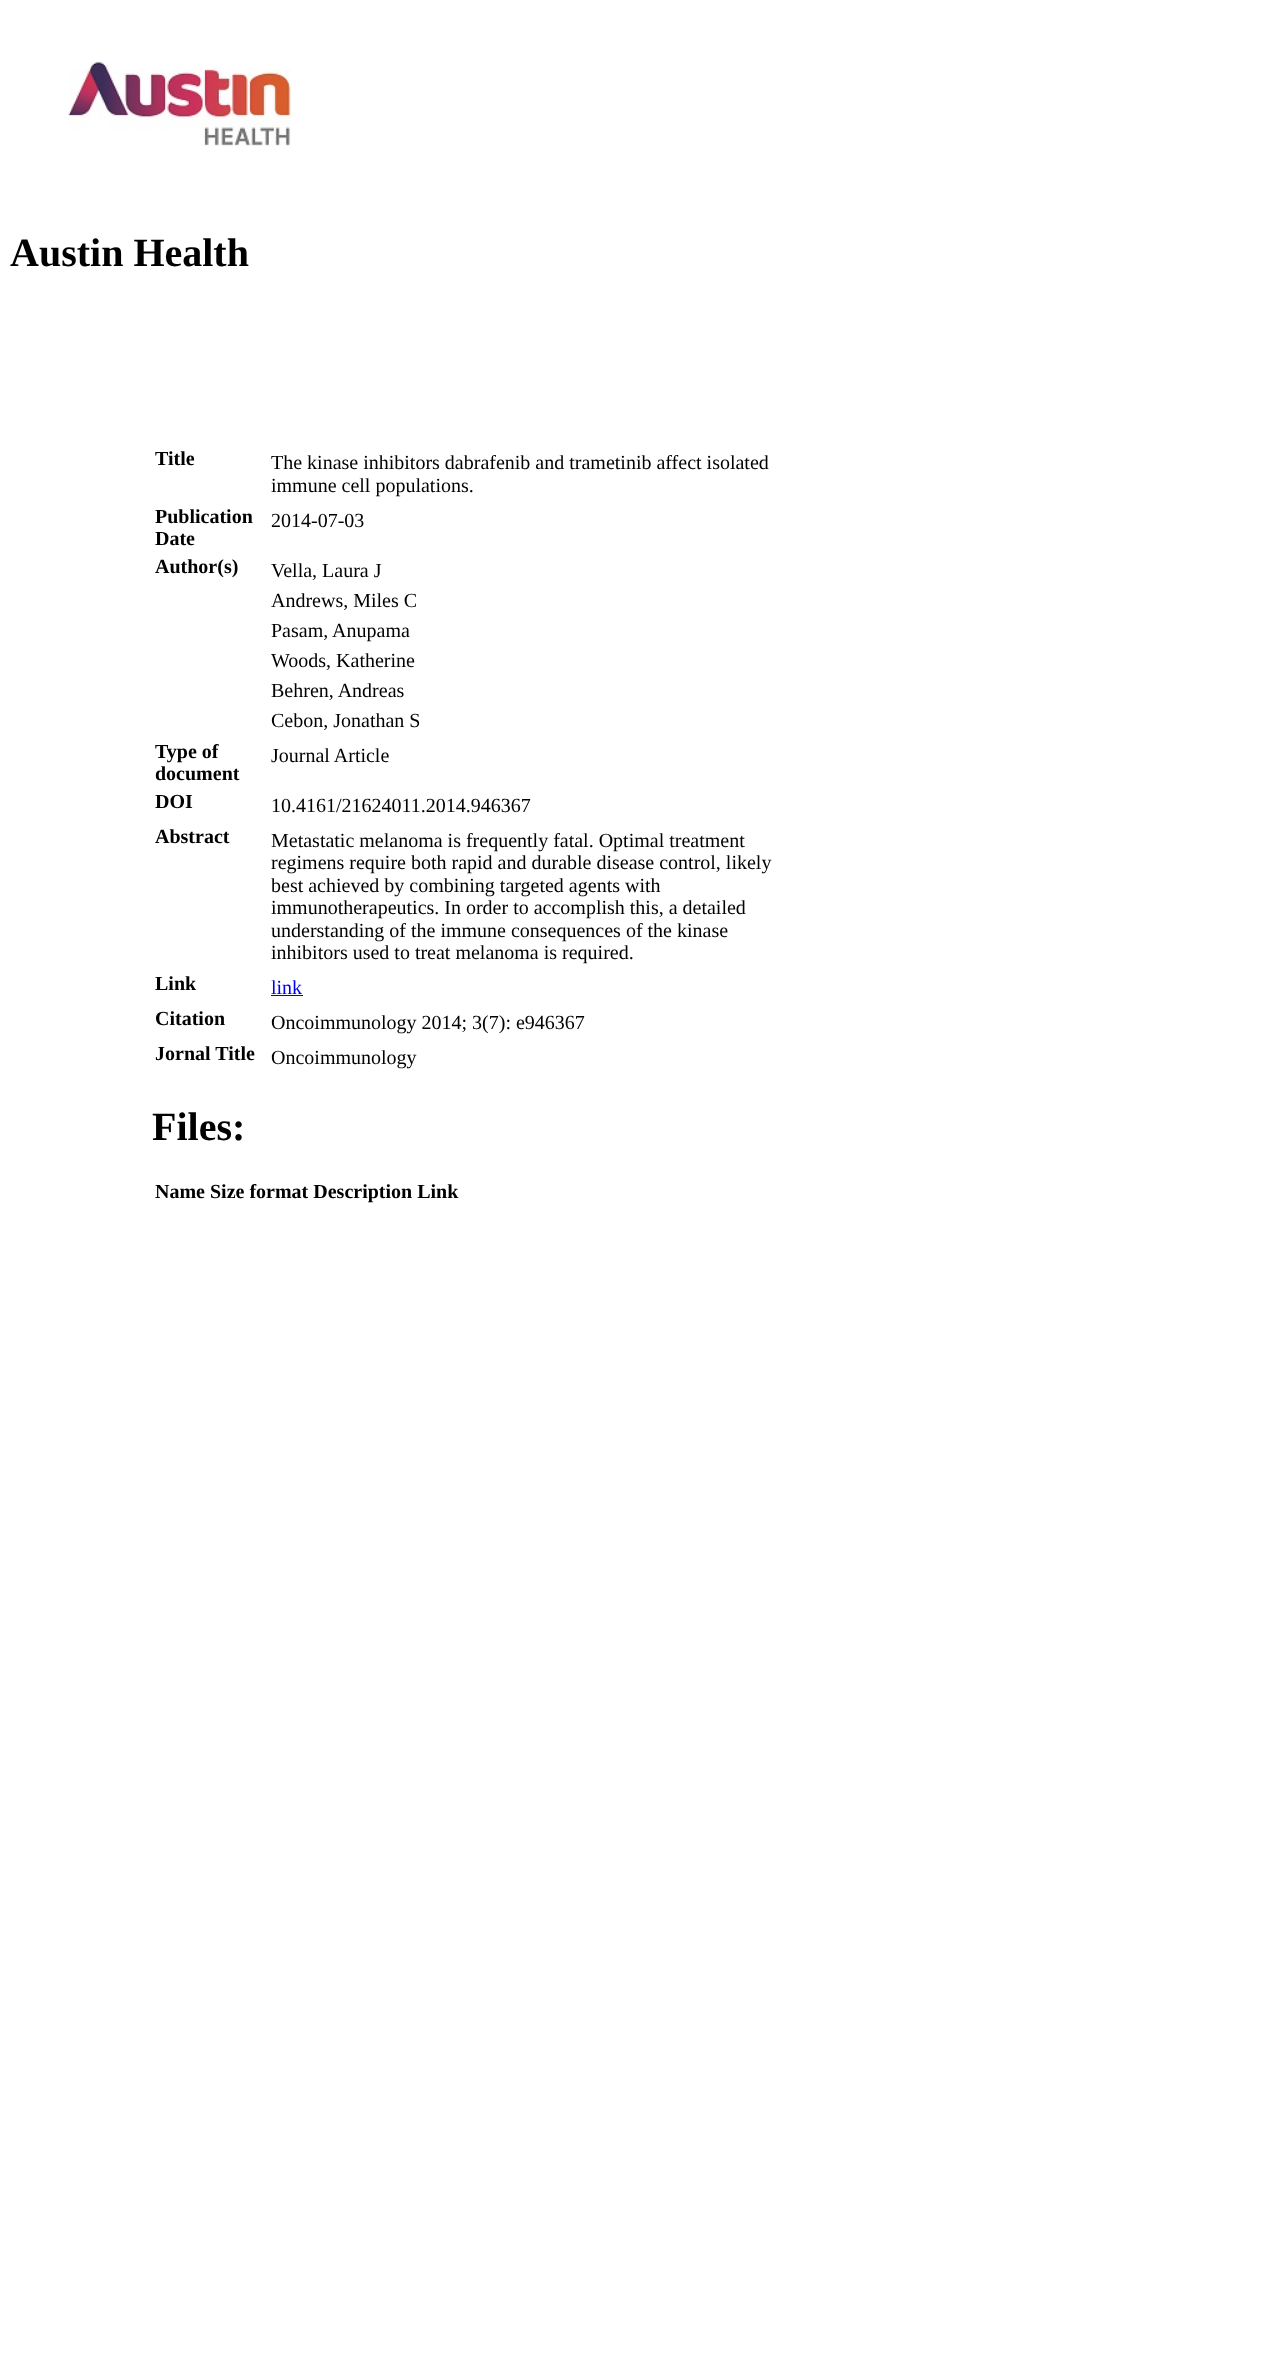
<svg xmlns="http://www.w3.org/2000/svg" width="1287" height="2376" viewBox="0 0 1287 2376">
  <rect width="100%" height="100%" fill="rgb(255,255,255)"/>
  <image x="68" y="61" width="224" height="85" href="pic1.png"/>
  <text x="10" y="266" font-family="Liberation Serif" font-size="40" font-weight="bold" fill="rgb(0,0,0)">Austin Health</text>
  <text x="155" y="465" font-family="Liberation Serif" font-size="20" font-weight="bold" fill="rgb(0,0,0)">Title</text>
  <g font-family="Liberation Serif" font-size="20" fill="rgb(0,0,0)">
    <text>
      <tspan x="271" y="469">The kinase inhibitors dabrafenib and trametinib affect isolated</tspan>
      <tspan x="271" y="492">immune cell populations.</tspan>
    </text>
  </g>
  <g font-family="Liberation Serif" font-size="20" font-weight="bold" fill="rgb(0,0,0)">
    <text>
      <tspan x="155" y="523">Publication</tspan>
      <tspan x="155" y="545">Date</tspan>
    </text>
  </g>
  <text x="271" y="527" font-family="Liberation Serif" font-size="20" fill="rgb(0,0,0)">2014-07-03</text>
  <text x="155" y="573" font-family="Liberation Serif" font-size="20" font-weight="bold" fill="rgb(0,0,0)">Author(s)</text>
  <g font-family="Liberation Serif" font-size="20" fill="rgb(0,0,0)">
    <text>
      <tspan x="271" y="577">Vella, Laura J</tspan>
      <tspan x="271" y="607">Andrews, Miles C</tspan>
      <tspan x="271" y="637">Pasam, Anupama</tspan>
      <tspan x="271" y="667">Woods, Katherine</tspan>
      <tspan x="271" y="697">Behren, Andreas</tspan>
      <tspan x="271" y="727">Cebon, Jonathan S</tspan>
    </text>
  </g>
  <g font-family="Liberation Serif" font-size="20" font-weight="bold" fill="rgb(0,0,0)">
    <text>
      <tspan x="155" y="758">Type of</tspan>
      <tspan x="155" y="780">document</tspan>
    </text>
  </g>
  <text x="271" y="762" font-family="Liberation Serif" font-size="20" fill="rgb(0,0,0)">Journal Article</text>
  <text x="155" y="808" font-family="Liberation Serif" font-size="20" font-weight="bold" fill="rgb(0,0,0)">DOI</text>
  <text x="271" y="812" font-family="Liberation Serif" font-size="20" fill="rgb(0,0,0)">10.4161/21624011.2014.946367</text>
  <text x="155" y="843" font-family="Liberation Serif" font-size="20" font-weight="bold" fill="rgb(0,0,0)">Abstract</text>
  <g font-family="Liberation Serif" font-size="20" fill="rgb(0,0,0)">
    <text>
      <tspan x="271" y="847">Metastatic melanoma is frequently fatal. Optimal treatment</tspan>
      <tspan x="271" y="869">regimens require both rapid and durable disease control, likely</tspan>
      <tspan x="271" y="892">best achieved by combining targeted agents with</tspan>
      <tspan x="271" y="914">immunotherapeutics. In order to accomplish this, a detailed</tspan>
      <tspan x="271" y="937">understanding of the immune consequences of the kinase</tspan>
      <tspan x="271" y="959">inhibitors used to treat melanoma is required.</tspan>
    </text>
  </g>
  <text x="155" y="990" font-family="Liberation Serif" font-size="20" font-weight="bold" fill="rgb(0,0,0)">Link</text>
  <text x="271" y="994" font-family="Liberation Serif" font-size="20" fill="rgb(0,0,238)">link</text>
  <rect x="271" y="995" width="32" height="1" fill="rgb(0,0,238)"/>
  <text x="155" y="1025" font-family="Liberation Serif" font-size="20" font-weight="bold" fill="rgb(0,0,0)">Citation</text>
  <text x="271" y="1029" font-family="Liberation Serif" font-size="20" fill="rgb(0,0,0)">Oncoimmunology 2014; 3(7): e946367</text>
  <text x="155" y="1060" font-family="Liberation Serif" font-size="20" font-weight="bold" fill="rgb(0,0,0)">Jornal Title</text>
  <text x="271" y="1064" font-family="Liberation Serif" font-size="20" fill="rgb(0,0,0)">Oncoimmunology</text>
  <text x="152" y="1140" font-family="Liberation Serif" font-size="40" font-weight="bold" fill="rgb(0,0,0)">Files:</text>
  <text x="155" y="1198" font-family="Liberation Serif" font-size="20" font-weight="bold" fill="rgb(0,0,0)">Name Size format Description Link</text>
</svg>
